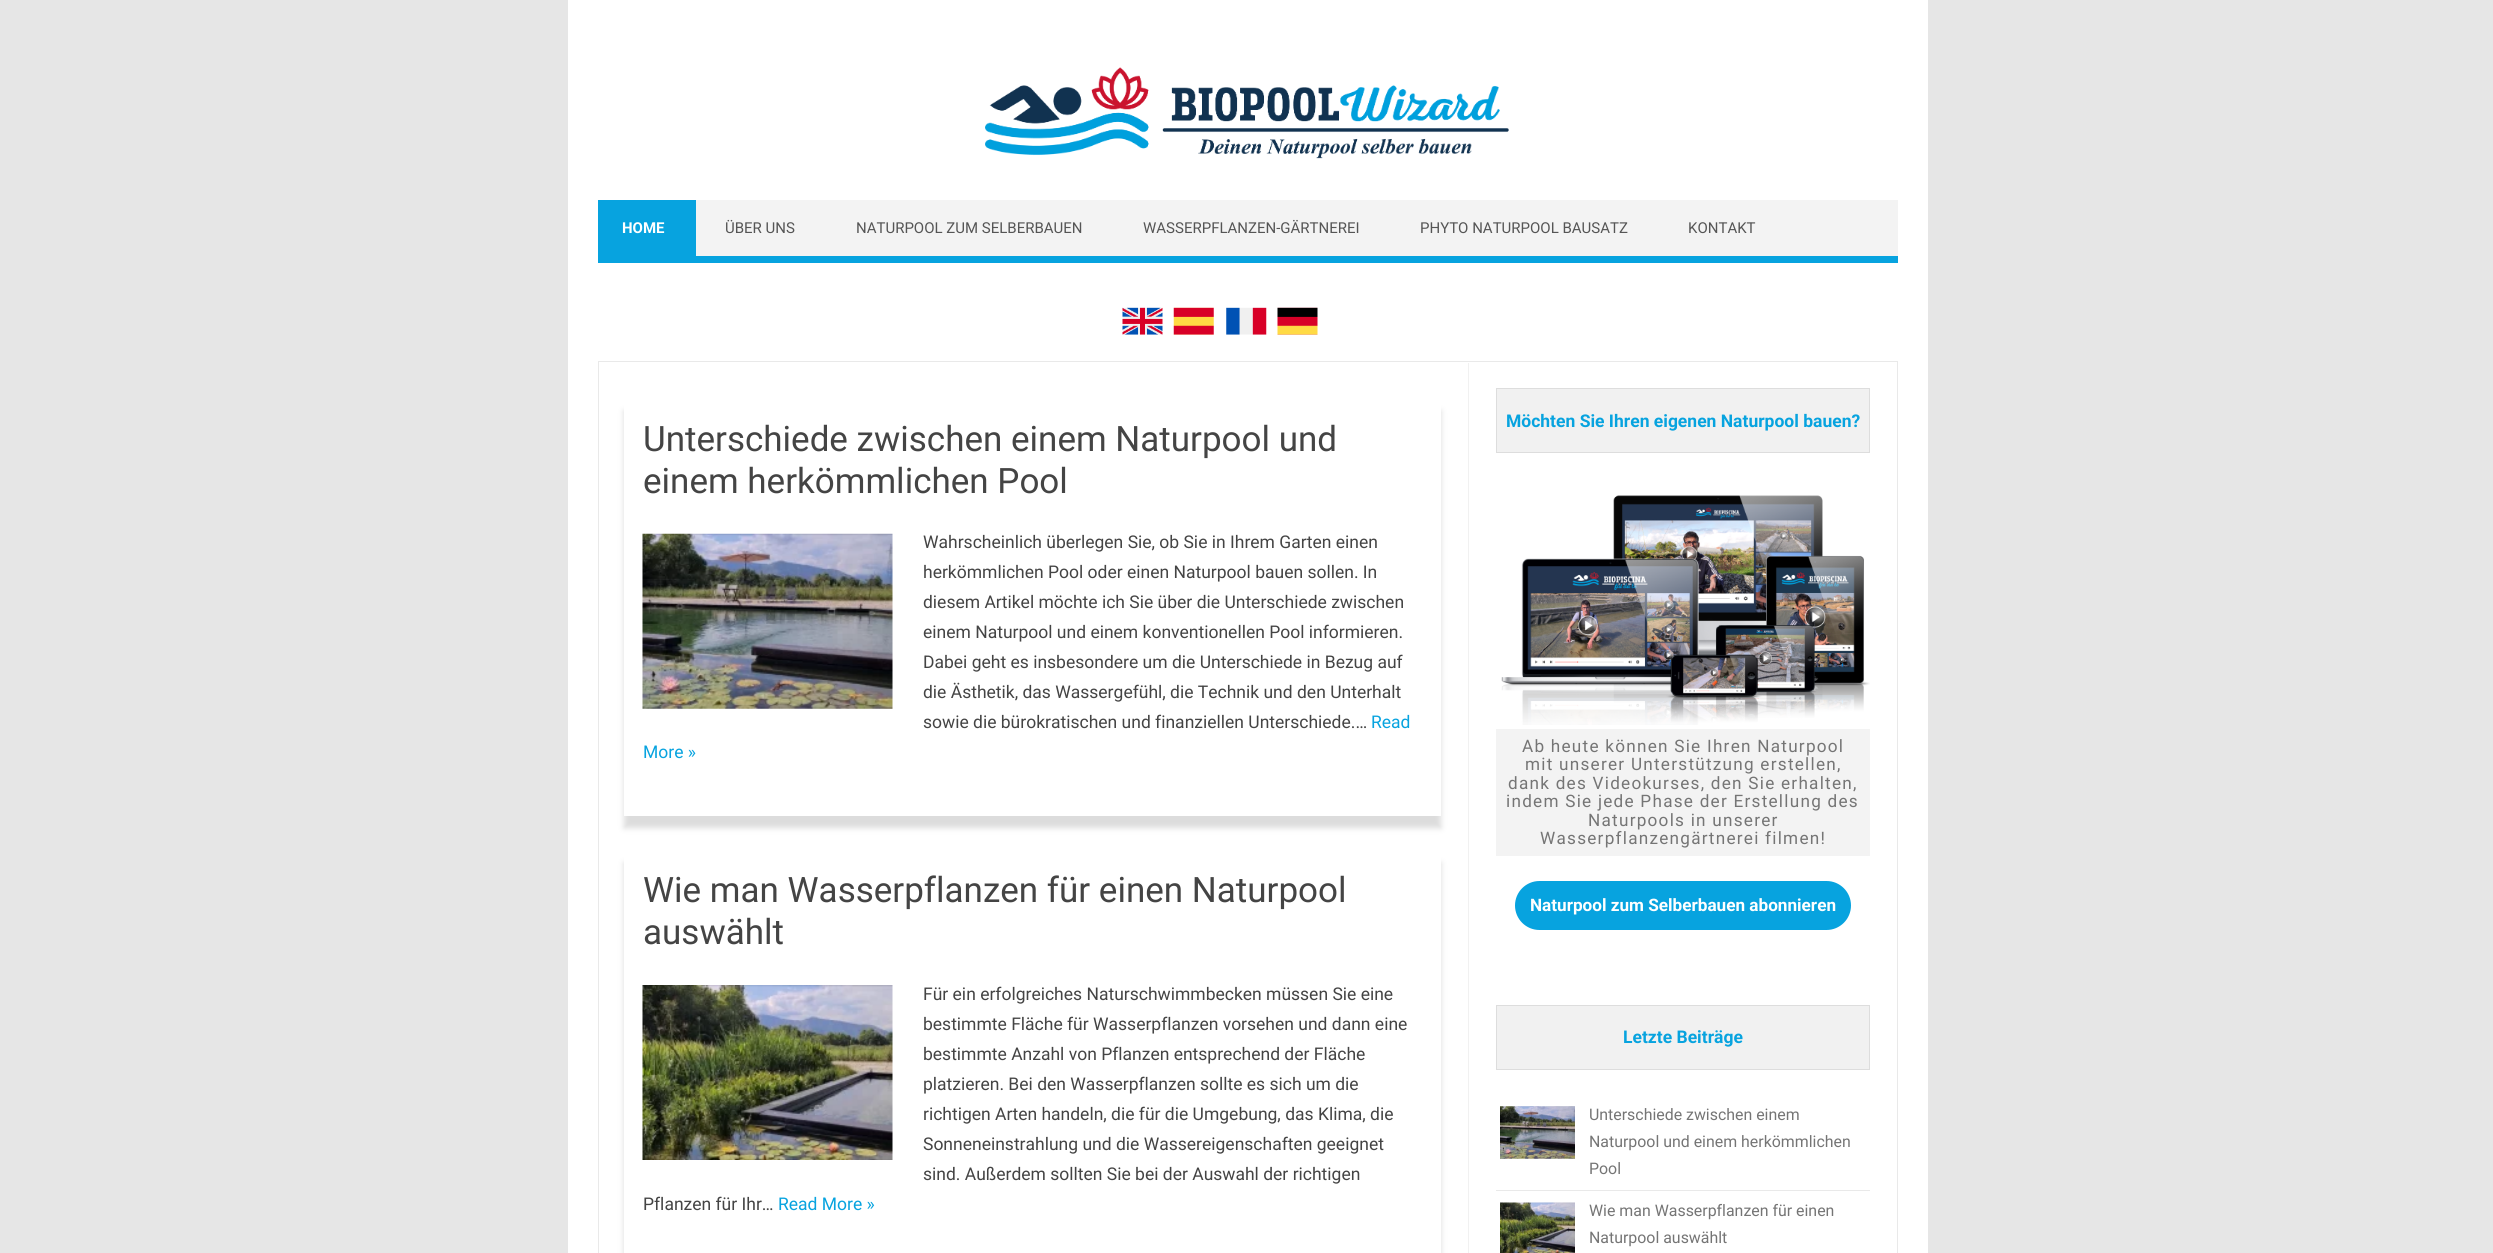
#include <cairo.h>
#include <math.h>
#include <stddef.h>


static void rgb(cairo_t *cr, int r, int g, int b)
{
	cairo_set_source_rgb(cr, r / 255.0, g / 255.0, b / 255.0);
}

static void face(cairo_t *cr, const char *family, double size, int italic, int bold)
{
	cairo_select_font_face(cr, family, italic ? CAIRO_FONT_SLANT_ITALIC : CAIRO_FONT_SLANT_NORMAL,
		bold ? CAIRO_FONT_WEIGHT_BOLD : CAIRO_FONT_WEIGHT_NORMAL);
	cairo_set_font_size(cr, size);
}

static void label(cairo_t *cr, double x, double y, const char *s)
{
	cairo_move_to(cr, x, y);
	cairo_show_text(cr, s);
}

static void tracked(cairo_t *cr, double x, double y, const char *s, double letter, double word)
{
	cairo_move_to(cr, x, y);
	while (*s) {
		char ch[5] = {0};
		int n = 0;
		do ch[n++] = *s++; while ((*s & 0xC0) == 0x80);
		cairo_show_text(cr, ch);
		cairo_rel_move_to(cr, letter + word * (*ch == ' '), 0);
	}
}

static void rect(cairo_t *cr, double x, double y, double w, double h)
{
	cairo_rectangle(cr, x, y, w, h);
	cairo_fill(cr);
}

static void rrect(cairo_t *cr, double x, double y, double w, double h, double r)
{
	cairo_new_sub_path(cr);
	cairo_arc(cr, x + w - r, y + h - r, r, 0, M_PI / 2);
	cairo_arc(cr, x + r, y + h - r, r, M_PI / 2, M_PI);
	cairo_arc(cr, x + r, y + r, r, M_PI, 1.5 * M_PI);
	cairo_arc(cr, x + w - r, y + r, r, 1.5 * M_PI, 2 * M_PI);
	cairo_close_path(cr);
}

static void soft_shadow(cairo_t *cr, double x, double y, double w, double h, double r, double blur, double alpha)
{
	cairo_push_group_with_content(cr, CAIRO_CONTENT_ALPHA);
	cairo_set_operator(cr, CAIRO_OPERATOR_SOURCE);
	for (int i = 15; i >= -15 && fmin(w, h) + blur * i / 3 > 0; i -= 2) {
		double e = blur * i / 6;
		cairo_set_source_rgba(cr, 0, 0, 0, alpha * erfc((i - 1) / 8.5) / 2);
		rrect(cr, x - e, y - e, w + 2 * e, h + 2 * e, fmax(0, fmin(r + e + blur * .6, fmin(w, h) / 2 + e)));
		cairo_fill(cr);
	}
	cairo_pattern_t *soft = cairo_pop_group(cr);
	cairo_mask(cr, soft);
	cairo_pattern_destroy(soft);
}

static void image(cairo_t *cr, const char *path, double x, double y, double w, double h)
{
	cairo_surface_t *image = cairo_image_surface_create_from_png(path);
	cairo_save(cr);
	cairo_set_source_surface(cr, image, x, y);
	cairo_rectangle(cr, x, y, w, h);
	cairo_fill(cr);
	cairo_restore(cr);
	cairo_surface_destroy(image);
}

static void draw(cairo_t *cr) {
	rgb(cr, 230, 230, 230);
	cairo_paint(cr);
	rgb(cr, 255, 255, 255);
	rect(cr, 568, 0, 1360, 1253);
	image(cr, "image0.png", 985, 67, 524, 92);
	rgb(cr, 243, 243, 243);
	rect(cr, 696, 200, 1202, 56);
	rgb(cr, 7, 163, 223);
	rect(cr, 598, 256, 1300, 7);
	rect(cr, 598, 200, 98, 56);
	face(cr, "Roboto", 15, 0, 1);
	rgb(cr, 255, 255, 255);
	label(cr, 622, 233, "HOME");
	face(cr, "Roboto", 15, 0, 0);
	rgb(cr, 85, 85, 85);
	label(cr, 725, 233, "ÜBER UNS");
	label(cr, 856, 233, "NATURPOOL ZUM SELBERBAUEN");
	label(cr, 1143, 233, "WASSERPFLANZEN-GÄRTNEREI");
	label(cr, 1420, 233, "PHYTO NATURPOOL BAUSATZ");
	label(cr, 1688, 233, "KONTAKT");
	image(cr, "image1.png", 1122, 307, 41, 28);
	image(cr, "image2.png", 1173, 307, 41, 28);
	image(cr, "image3.png", 1226, 307, 41, 28);
	image(cr, "image4.png", 1277, 307, 41, 28);
	cairo_rectangle(cr, 598.5, 361.5, 1299, 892);
	rgb(cr, 233, 233, 233);
	cairo_set_line_width(cr, 1);
	cairo_stroke(cr);
	rgb(cr, 241, 241, 241);
	rect(cr, 1468, 363, 1, 890);
	cairo_save(cr);
	cairo_set_fill_rule(cr, CAIRO_FILL_RULE_EVEN_ODD);
	cairo_new_path(cr);
	cairo_move_to(cr, 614, 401);
	cairo_line_to(cr, 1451, 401);
	cairo_line_to(cr, 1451, 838);
	cairo_line_to(cr, 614, 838);
	cairo_close_path(cr);
	cairo_move_to(cr, 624, 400);
	cairo_line_to(cr, 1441, 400);
	cairo_line_to(cr, 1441, 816);
	cairo_line_to(cr, 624, 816);
	cairo_close_path(cr);
	cairo_clip(cr);
	rgb(cr, 220, 220, 220);
	soft_shadow(cr, 624, 411, 817, 417, 0, 3, 1);
	cairo_restore(cr);
	face(cr, "Roboto", 35, 0, 0);
	rgb(cr, 68, 68, 68);
	label(cr, 643, 451, "Unterschiede zwischen einem Naturpool und");
	label(cr, 643, 493, "einem herkömmlichen Pool");
	image(cr, "image5.png", 642, 533, 251, 176);
	face(cr, "Roboto", 17.5, 0, 0);
	label(cr, 923, 548, "Wahrscheinlich überlegen Sie, ob Sie in Ihrem Garten einen");
	label(cr, 923, 578, "herkömmlichen Pool oder einen Naturpool bauen sollen. In");
	label(cr, 923, 608, "diesem Artikel möchte ich Sie über die Unterschiede zwischen");
	label(cr, 923, 638, "einem Naturpool und einem konventionellen Pool informieren.");
	label(cr, 923, 668, "Dabei geht es insbesondere um die Unterschiede in Bezug auf");
	label(cr, 923, 698, "die Ästhetik, das Wassergefühl, die Technik und den Unterhalt");
	label(cr, 923, 728, "sowie die bürokratischen und finanziellen Unterschiede.…");
	rgb(cr, 7, 163, 223);
	label(cr, 1371, 728, "Read");
	label(cr, 643, 758, "More »");
	cairo_save(cr);
	cairo_set_fill_rule(cr, CAIRO_FILL_RULE_EVEN_ODD);
	cairo_new_path(cr);
	cairo_move_to(cr, 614, 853);
	cairo_line_to(cr, 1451, 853);
	cairo_line_to(cr, 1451, 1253);
	cairo_line_to(cr, 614, 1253);
	cairo_close_path(cr);
	cairo_move_to(cr, 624, 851);
	cairo_line_to(cr, 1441, 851);
	cairo_line_to(cr, 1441, 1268);
	cairo_line_to(cr, 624, 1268);
	cairo_close_path(cr);
	cairo_clip(cr);
	rgb(cr, 220, 220, 220);
	soft_shadow(cr, 624, 863, 817, 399, 0, 3, 1);
	cairo_restore(cr);
	face(cr, "Roboto", 35, 0, 0);
	rgb(cr, 68, 68, 68);
	label(cr, 643, 902, "Wie man Wasserpflanzen für einen Naturpool");
	label(cr, 643, 944, "auswählt");
	image(cr, "image6.png", 642, 985, 251, 175);
	face(cr, "Roboto", 17.5, 0, 0);
	label(cr, 923, 1000, "Für ein erfolgreiches Naturschwimmbecken müssen Sie eine");
	label(cr, 923, 1030, "bestimmte Fläche für Wasserpflanzen vorsehen und dann eine");
	label(cr, 923, 1060, "bestimmte Anzahl von Pflanzen entsprechend der Fläche");
	label(cr, 923, 1090, "platzieren. Bei den Wasserpflanzen sollte es sich um die");
	label(cr, 923, 1120, "richtigen Arten handeln, die für die Umgebung, das Klima, die");
	label(cr, 923, 1150, "Sonneneinstrahlung und die Wassereigenschaften geeignet");
	label(cr, 923, 1180, "sind. Außerdem sollten Sie bei der Auswahl der richtigen");
	label(cr, 643, 1210, "Pflanzen für Ihr…");
	rgb(cr, 7, 163, 223);
	label(cr, 778, 1210, "Read More »");
	rgb(cr, 241, 241, 241);
	cairo_rectangle(cr, 1496.5, 388.5, 373, 64);
	cairo_fill_preserve(cr);
	rgb(cr, 221, 221, 221);
	cairo_stroke(cr);
	face(cr, "Roboto", 17.5, 0, 1);
	rgb(cr, 7, 163, 223);
	label(cr, 1506, 427, "Möchten Sie Ihren eigenen Naturpool bauen?");
	image(cr, "image7.png", 1501, 495, 369, 230);
	rgb(cr, 243, 243, 243);
	rect(cr, 1496, 729, 374, 127);
	face(cr, "Roboto", 17.15, 0, 0);
	rgb(cr, 117, 117, 117);
	tracked(cr, 1522, 752, "Ab heute können Sie Ihren Naturpool", 1.25, 0);
	tracked(cr, 1525, 770, "mit unserer Unterstützung erstellen,", 1.25, 0);
	tracked(cr, 1508, 789, "dank des Videokurses, den Sie erhalten,", 1.25, 0);
	tracked(cr, 1506, 807, "indem Sie jede Phase der Erstellung des", 1.25, 0);
	tracked(cr, 1588, 826, "Naturpools in unserer", 1.25, 0);
	tracked(cr, 1540, 844, "Wasserpflanzengärtnerei filmen!", 1.25, 0);
	rgb(cr, 7, 163, 223);
	rrect(cr, 1516.5, 882.5, 333, 46, 23);
	cairo_fill_preserve(cr);
	cairo_set_line_width(cr, 3);
	cairo_stroke(cr);
	face(cr, "Roboto", 17.15, 0, 1);
	rgb(cr, 255, 255, 255);
	label(cr, 1530, 911, "Naturpool zum Selberbauen abonnieren");
	rgb(cr, 241, 241, 241);
	cairo_rectangle(cr, 1496.5, 1005.5, 373, 64);
	cairo_fill_preserve(cr);
	rgb(cr, 221, 221, 221);
	cairo_set_line_width(cr, 1);
	cairo_stroke(cr);
	face(cr, "Roboto", 17.5, 0, 1);
	rgb(cr, 7, 163, 223);
	label(cr, 1623, 1043, "Letzte Beiträge");
	rgb(cr, 233, 233, 233);
	rect(cr, 1496, 1190, 374, 1);
	image(cr, "image8.png", 1500, 1106, 75, 53);
	face(cr, "Roboto", 15.9, 0, 0);
	rgb(cr, 117, 117, 117);
	label(cr, 1589, 1120, "Unterschiede zwischen einem");
	label(cr, 1589, 1147, "Naturpool und einem herkömmlichen");
	label(cr, 1589, 1174, "Pool");
	image(cr, "image9.png", 1500, 1202, 75, 51);
	label(cr, 1589, 1216, "Wie man Wasserpflanzen für einen");
	label(cr, 1589, 1243, "Naturpool auswählt");
}

int main(void) {
	cairo_surface_t *surface = cairo_image_surface_create(CAIRO_FORMAT_RGB24, 2493, 1253);
	cairo_t *cr = cairo_create(surface);
	cairo_font_options_t *options = cairo_font_options_create();
	cairo_font_options_set_hint_metrics(options, CAIRO_HINT_METRICS_OFF);
	cairo_font_options_set_hint_style(options, CAIRO_HINT_STYLE_NONE);
	cairo_set_font_options(cr, options);
	cairo_set_miter_limit(cr, 4);
	draw(cr);
	cairo_surface_write_to_png(surface, "render.png");
	cairo_font_options_destroy(options);
	cairo_destroy(cr);
	cairo_surface_destroy(surface);
	return 0;
}
